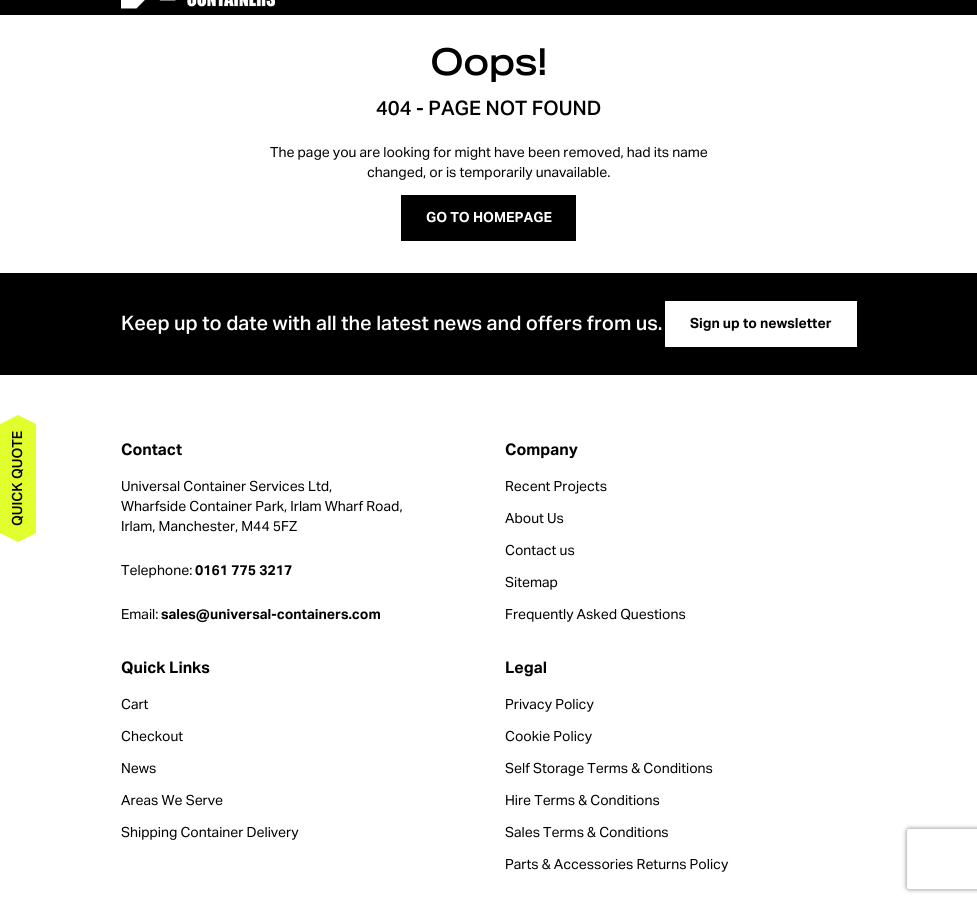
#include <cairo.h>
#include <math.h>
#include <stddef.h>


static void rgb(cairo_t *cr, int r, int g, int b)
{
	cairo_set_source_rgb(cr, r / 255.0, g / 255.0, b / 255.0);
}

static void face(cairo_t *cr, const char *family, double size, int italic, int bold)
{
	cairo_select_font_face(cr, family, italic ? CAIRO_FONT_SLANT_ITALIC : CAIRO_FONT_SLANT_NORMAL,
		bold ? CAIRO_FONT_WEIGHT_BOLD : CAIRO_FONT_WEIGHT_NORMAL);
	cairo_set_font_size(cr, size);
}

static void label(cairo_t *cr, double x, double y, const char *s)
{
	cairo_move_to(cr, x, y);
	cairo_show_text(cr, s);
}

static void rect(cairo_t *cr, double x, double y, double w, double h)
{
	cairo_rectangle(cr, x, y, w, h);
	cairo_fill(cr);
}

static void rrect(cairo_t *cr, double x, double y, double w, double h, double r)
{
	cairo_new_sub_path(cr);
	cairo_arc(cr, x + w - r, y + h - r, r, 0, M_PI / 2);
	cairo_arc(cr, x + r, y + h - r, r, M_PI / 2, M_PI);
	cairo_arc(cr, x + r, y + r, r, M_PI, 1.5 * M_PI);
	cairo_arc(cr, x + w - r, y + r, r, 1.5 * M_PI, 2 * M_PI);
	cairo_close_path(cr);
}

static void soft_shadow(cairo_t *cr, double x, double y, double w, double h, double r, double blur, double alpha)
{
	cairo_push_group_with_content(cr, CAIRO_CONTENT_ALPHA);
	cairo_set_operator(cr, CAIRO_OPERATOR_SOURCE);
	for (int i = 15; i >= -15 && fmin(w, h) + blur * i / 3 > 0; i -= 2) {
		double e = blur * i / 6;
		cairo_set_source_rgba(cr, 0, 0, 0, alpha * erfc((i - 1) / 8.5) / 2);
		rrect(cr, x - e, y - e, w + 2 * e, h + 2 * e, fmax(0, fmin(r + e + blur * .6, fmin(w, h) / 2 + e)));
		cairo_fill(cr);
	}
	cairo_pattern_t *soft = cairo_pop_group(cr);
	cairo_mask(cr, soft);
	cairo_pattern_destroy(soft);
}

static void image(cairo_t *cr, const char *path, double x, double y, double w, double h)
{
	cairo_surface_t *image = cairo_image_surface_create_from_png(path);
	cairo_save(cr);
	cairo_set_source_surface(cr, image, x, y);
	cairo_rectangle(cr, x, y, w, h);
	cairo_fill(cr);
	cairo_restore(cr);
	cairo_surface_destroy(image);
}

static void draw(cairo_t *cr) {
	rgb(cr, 255, 255, 255);
	cairo_paint(cr);
	rgb(cr, 225, 255, 44);
	cairo_new_path(cr);
	cairo_move_to(cr, 0, 533);
	cairo_line_to(cr, 18, 542);
	cairo_line_to(cr, 36, 533);
	cairo_line_to(cr, 36, 424);
	cairo_line_to(cr, 18, 415);
	cairo_line_to(cr, 0, 424);
	cairo_close_path(cr);
	cairo_fill(cr);
	face(cr, "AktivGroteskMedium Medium", 14, 0, 0);
	rgb(cr, 0, 0, 0);
	cairo_save(cr);
	cairo_translate(cr, 22, 479);
	cairo_rotate(cr, -90 * M_PI / 180);
	label(cr, 0, 0, "QUOTE");
	cairo_restore(cr);
	cairo_save(cr);
	cairo_translate(cr, 22, 526);
	cairo_rotate(cr, -90 * M_PI / 180);
	label(cr, 0, 0, "QUICK");
	cairo_restore(cr);
	rect(cr, 0, 0, 977, 15);
	image(cr, "image0.png", 121, 0, 154, 9);
	face(cr, "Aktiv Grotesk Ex", 36, 0, 1);
	label(cr, 430, 75, "Oops!");
	face(cr, "AktivGroteskMedium Medium", 20, 0, 0);
	label(cr, 376, 115, "404 - PAGE NOT FOUND");
	face(cr, "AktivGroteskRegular", 14, 0, 0);
	label(cr, 270, 157, "The page you are looking for might have been removed, had its name");
	label(cr, 367, 177, "changed, or is temporarily unavailable.");
	rect(cr, 401, 195, 175, 46);
	face(cr, "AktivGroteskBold", 14, 0, 1);
	rgb(cr, 255, 255, 255);
	label(cr, 426, 222, "GO TO HOMEPAGE");
	rgb(cr, 0, 0, 0);
	rect(cr, 0, 273, 977, 102);
	face(cr, "AktivGroteskMedium Medium", 20, 0, 0);
	rgb(cr, 255, 255, 255);
	label(cr, 121, 330, "Keep up to date with all the latest news and offers from us.");
	rect(cr, 665, 301, 192, 46);
	face(cr, "AktivGroteskBold", 14, 0, 1);
	rgb(cr, 0, 0, 0);
	label(cr, 690, 328, "Sign up to newsletter");
	face(cr, "AktivGroteskBold", 16, 0, 1);
	label(cr, 121, 455, "Contact");
	face(cr, "AktivGroteskRegular", 14, 0, 0);
	label(cr, 121, 491, "Universal Container Services Ltd,");
	label(cr, 121, 511, "Wharfside Container Park, Irlam Wharf Road,");
	label(cr, 121, 531, "Irlam, Manchester, M44 5FZ");
	label(cr, 121, 575, "Telephone:");
	face(cr, "AktivGroteskBold", 14, 0, 1);
	label(cr, 195, 575, "0161 775 3217");
	face(cr, "AktivGroteskRegular", 14, 0, 0);
	label(cr, 121, 619, "Email:");
	face(cr, "AktivGroteskBold", 14, 0, 1);
	label(cr, 161, 619, "sales@universal-containers.com");
	face(cr, "AktivGroteskBold", 16, 0, 1);
	label(cr, 505, 455, "Company");
	face(cr, "AktivGroteskRegular", 14, 0, 0);
	label(cr, 505, 491, "Recent Projects");
	label(cr, 505, 523, "About Us");
	label(cr, 505, 555, "Contact us");
	label(cr, 505, 587, "Sitemap");
	label(cr, 505, 619, "Frequently Asked Questions");
	face(cr, "AktivGroteskBold", 16, 0, 1);
	label(cr, 121, 673, "Quick Links");
	face(cr, "AktivGroteskRegular", 14, 0, 0);
	label(cr, 121, 709, "Cart");
	label(cr, 121, 741, "Checkout");
	label(cr, 121, 773, "News");
	label(cr, 121, 805, "Areas We Serve");
	label(cr, 121, 837, "Shipping Container Delivery");
	face(cr, "AktivGroteskBold", 16, 0, 1);
	label(cr, 505, 673, "Legal");
	face(cr, "AktivGroteskRegular", 14, 0, 0);
	label(cr, 505, 709, "Privacy Policy");
	label(cr, 505, 741, "Cookie Policy");
	label(cr, 505, 773, "Self Storage Terms & Conditions");
	label(cr, 505, 805, "Hire Terms & Conditions");
	label(cr, 505, 837, "Sales Terms & Conditions");
	label(cr, 505, 869, "Parts & Accessories Returns Policy");
	cairo_save(cr);
	cairo_set_fill_rule(cr, CAIRO_FILL_RULE_EVEN_ODD);
	cairo_new_path(cr);
	cairo_move_to(cr, 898, 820);
	cairo_line_to(cr, 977, 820);
	cairo_line_to(cr, 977, 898);
	cairo_line_to(cr, 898, 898);
	cairo_close_path(cr);
	cairo_move_to(cr, 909, 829);
	cairo_line_to(cr, 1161, 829);
	cairo_curve_to(cr, 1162, 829, 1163, 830, 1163, 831);
	cairo_line_to(cr, 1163, 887);
	cairo_curve_to(cr, 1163, 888, 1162, 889, 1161, 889);
	cairo_line_to(cr, 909, 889);
	cairo_curve_to(cr, 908, 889, 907, 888, 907, 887);
	cairo_line_to(cr, 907, 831);
	cairo_curve_to(cr, 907, 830, 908, 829, 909, 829);
	cairo_close_path(cr);
	cairo_clip(cr);
	rgb(cr, 128, 128, 128);
	soft_shadow(cr, 907, 829, 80, 60, 2, 2.5, 1);
	cairo_restore(cr);
}

int main(void) {
	cairo_surface_t *surface = cairo_image_surface_create(CAIRO_FORMAT_RGB24, 977, 903);
	cairo_t *cr = cairo_create(surface);
	cairo_font_options_t *options = cairo_font_options_create();
	cairo_font_options_set_hint_metrics(options, CAIRO_HINT_METRICS_OFF);
	cairo_font_options_set_hint_style(options, CAIRO_HINT_STYLE_NONE);
	cairo_set_font_options(cr, options);
	cairo_set_miter_limit(cr, 4);
	draw(cr);
	cairo_surface_write_to_png(surface, "render.png");
	cairo_font_options_destroy(options);
	cairo_destroy(cr);
	cairo_surface_destroy(surface);
	return 0;
}
